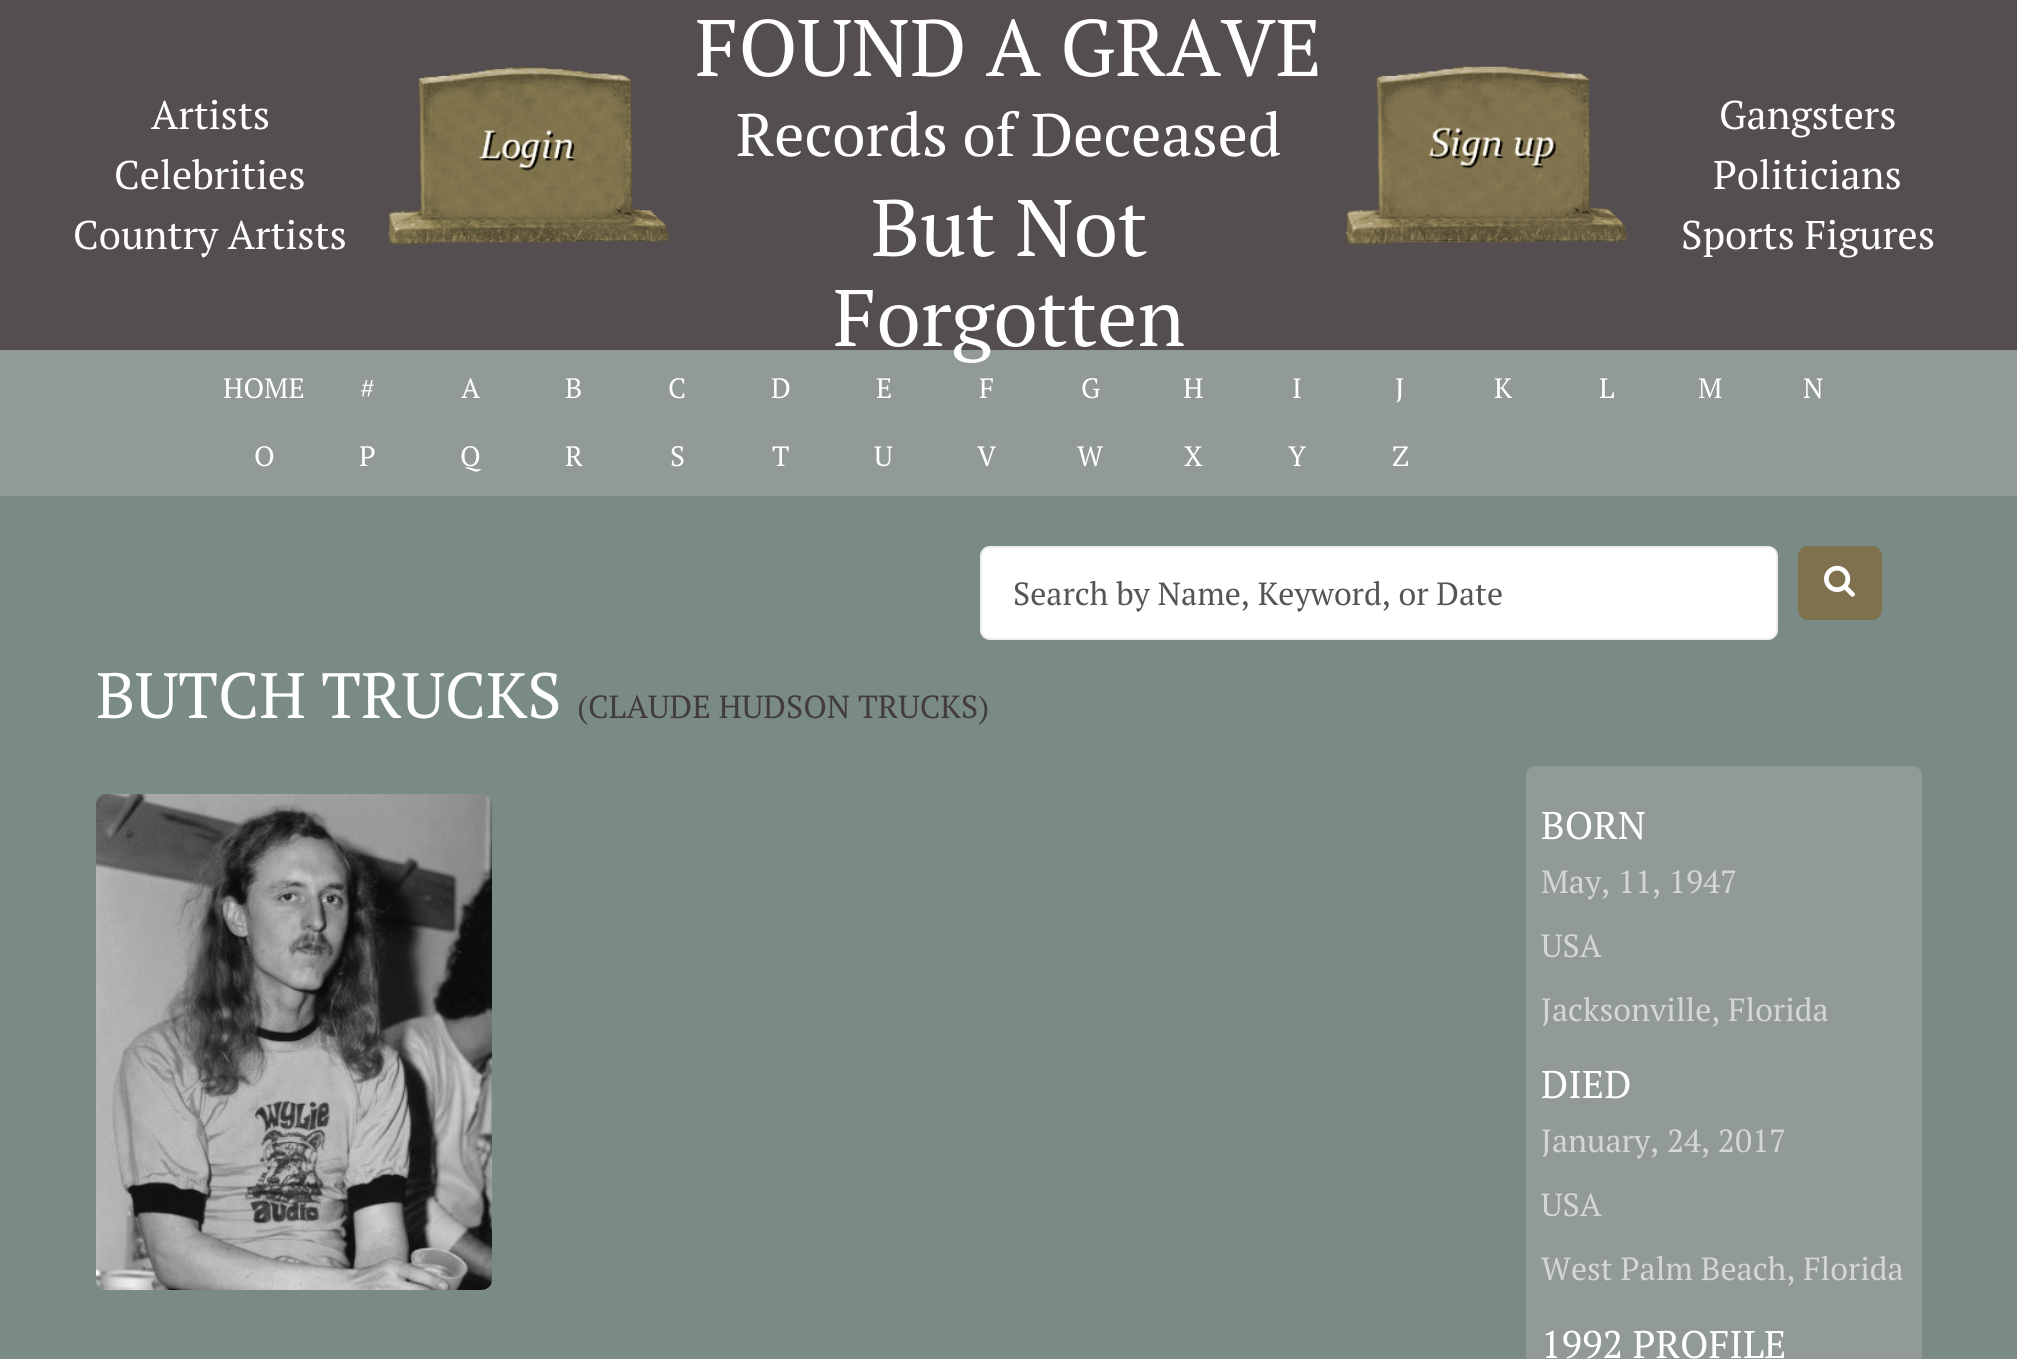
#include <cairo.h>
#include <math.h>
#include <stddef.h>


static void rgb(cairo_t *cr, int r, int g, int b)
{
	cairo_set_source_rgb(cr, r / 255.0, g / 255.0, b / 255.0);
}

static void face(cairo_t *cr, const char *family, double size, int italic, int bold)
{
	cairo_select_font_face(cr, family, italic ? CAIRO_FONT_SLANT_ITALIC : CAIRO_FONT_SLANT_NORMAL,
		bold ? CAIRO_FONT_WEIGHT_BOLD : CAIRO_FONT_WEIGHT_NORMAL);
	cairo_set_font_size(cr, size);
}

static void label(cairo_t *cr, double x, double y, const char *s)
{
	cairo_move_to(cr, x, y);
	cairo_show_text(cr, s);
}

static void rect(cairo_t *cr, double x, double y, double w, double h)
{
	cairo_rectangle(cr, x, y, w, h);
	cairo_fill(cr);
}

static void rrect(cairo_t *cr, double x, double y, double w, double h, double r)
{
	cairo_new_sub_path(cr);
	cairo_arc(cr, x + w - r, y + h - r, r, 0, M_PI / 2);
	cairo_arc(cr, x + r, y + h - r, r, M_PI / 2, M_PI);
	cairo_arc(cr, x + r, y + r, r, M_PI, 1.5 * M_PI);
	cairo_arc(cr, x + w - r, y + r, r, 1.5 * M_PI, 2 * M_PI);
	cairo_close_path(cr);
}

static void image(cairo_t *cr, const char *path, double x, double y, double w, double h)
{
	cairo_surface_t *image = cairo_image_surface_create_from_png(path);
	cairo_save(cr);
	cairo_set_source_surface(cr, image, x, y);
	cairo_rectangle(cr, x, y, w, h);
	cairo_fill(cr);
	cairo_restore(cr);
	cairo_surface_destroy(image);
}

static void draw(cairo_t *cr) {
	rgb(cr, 84, 78, 80);
	cairo_paint(cr);
	face(cr, "PT Serif", 40, 0, 0);
	rgb(cr, 255, 255, 255);
	label(cr, 151, 129, "Artists");
	label(cr, 114, 189, "Celebrities");
	label(cr, 73, 249, "Country Artists");
	image(cr, "image0.png", 388, 67, 282, 178);
	face(cr, "PT Serif", 80, 0, 0);
	label(cr, 695, 76, "FOUND A GRAVE");
	face(cr, "PT Serif", 60, 0, 0);
	label(cr, 736, 156, "Records of Deceased");
	face(cr, "PT Serif", 80, 0, 0);
	label(cr, 871, 256, "But Not");
	rgb(cr, 145, 154, 151);
	rect(cr, 0, 350, 2017, 146);
	rgb(cr, 255, 255, 255);
	label(cr, 833, 346, "Forgotten");
	image(cr, "image1.png", 1346, 66, 282, 179);
	face(cr, "PT Serif", 40, 0, 0);
	label(cr, 1719, 129, "Gangsters");
	label(cr, 1713, 189, "Politicians");
	label(cr, 1681, 249, "Sports Figures");
	face(cr, "PT Serif", 28, 0, 0);
	label(cr, 223, 398, "HOME");
	label(cr, 360, 398, "#");
	label(cr, 461, 398, "A");
	label(cr, 565, 398, "B");
	label(cr, 668, 398, "C");
	label(cr, 771, 398, "D");
	label(cr, 876, 398, "E");
	label(cr, 979, 398, "F");
	label(cr, 1081, 398, "G");
	label(cr, 1183, 398, "H");
	label(cr, 1292, 398, "I");
	label(cr, 1395, 398, "J");
	label(cr, 1494, 398, "K");
	label(cr, 1599, 398, "L");
	label(cr, 1698, 398, "M");
	label(cr, 1803, 398, "N");
	label(cr, 254, 466, "O");
	label(cr, 359, 466, "P");
	label(cr, 460, 466, "Q");
	label(cr, 565, 466, "R");
	label(cr, 670, 466, "S");
	label(cr, 772, 466, "T");
	label(cr, 874, 466, "U");
	label(cr, 977, 466, "V");
	label(cr, 1077, 466, "W");
	label(cr, 1184, 466, "X");
	label(cr, 1288, 466, "Y");
	label(cr, 1392, 466, "Z");
	rgb(cr, 122, 139, 135);
	rect(cr, 0, 496, 2017, 863);
	rgb(cr, 255, 255, 255);
	rrect(cr, 981, 547, 796, 92, 9);
	cairo_fill_preserve(cr);
	rgb(cr, 238, 238, 238);
	cairo_stroke(cr);
	face(cr, "PT Serif", 32, 0, 0);
	rgb(cr, 85, 85, 85);
	label(cr, 1013, 605, "Search by Name, Keyword, or Date");
	rgb(cr, 127, 113, 77);
	rrect(cr, 1798, 546, 84, 74, 10);
	cairo_fill(cr);
	image(cr, "image2.png", 1824, 565, 31, 32);
	face(cr, "PT Serif", 64, 0, 0);
	rgb(cr, 255, 255, 255);
	label(cr, 96, 718, "BUTCH TRUCKS");
	face(cr, "PT Serif", 32, 0, 0);
	rgb(cr, 66, 60, 61);
	label(cr, 577, 718, "(CLAUDE HUDSON TRUCKS)");
	image(cr, "image3.png", 96, 794, 396, 496);
	rgb(cr, 145, 154, 151);
	rrect(cr, 1526, 766, 396, 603, 10);
	cairo_fill(cr);
	face(cr, "PT Serif", 38.5, 0, 0);
	rgb(cr, 255, 255, 255);
	label(cr, 1541, 839, "BORN");
	face(cr, "PT Serif", 32, 0, 0);
	rgb(cr, 211, 215, 213);
	label(cr, 1541, 893, "May, 11, 1947");
	label(cr, 1541, 957, "USA");
	label(cr, 1541, 1021, "Jacksonville, Florida");
	face(cr, "PT Serif", 38.5, 0, 0);
	rgb(cr, 255, 255, 255);
	label(cr, 1541, 1098, "DIED");
	face(cr, "PT Serif", 32, 0, 0);
	rgb(cr, 211, 215, 213);
	label(cr, 1541, 1152, "January, 24, 2017");
	label(cr, 1541, 1216, "USA");
	label(cr, 1541, 1280, "West Palm Beach, Florida");
	face(cr, "PT Serif", 38.5, 0, 0);
	rgb(cr, 255, 255, 255);
	label(cr, 1541, 1358, "1992 PROFILE");
}

int main(void) {
	cairo_surface_t *surface = cairo_image_surface_create(CAIRO_FORMAT_RGB24, 2017, 1359);
	cairo_t *cr = cairo_create(surface);
	cairo_font_options_t *options = cairo_font_options_create();
	cairo_font_options_set_hint_metrics(options, CAIRO_HINT_METRICS_OFF);
	cairo_font_options_set_hint_style(options, CAIRO_HINT_STYLE_NONE);
	cairo_set_font_options(cr, options);
	cairo_set_miter_limit(cr, 4);
	draw(cr);
	cairo_surface_write_to_png(surface, "render.png");
	cairo_font_options_destroy(options);
	cairo_destroy(cr);
	cairo_surface_destroy(surface);
	return 0;
}
